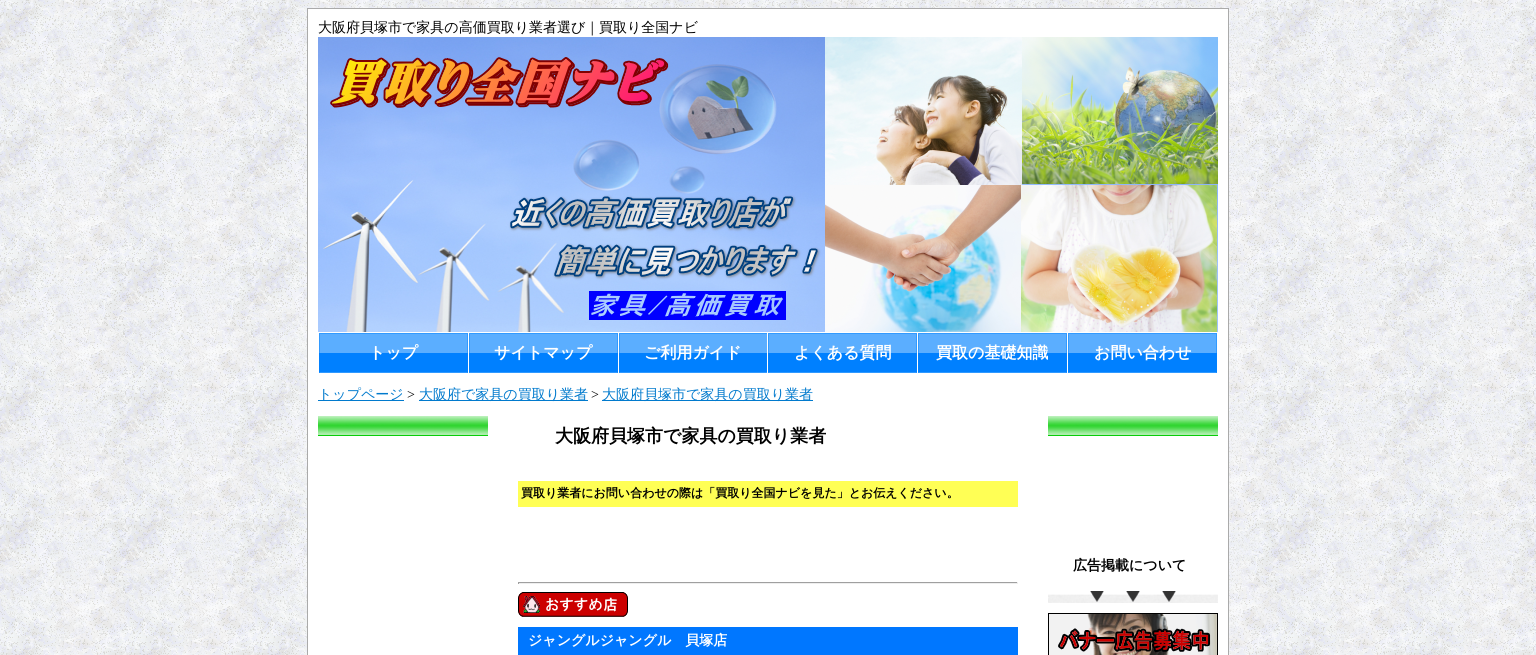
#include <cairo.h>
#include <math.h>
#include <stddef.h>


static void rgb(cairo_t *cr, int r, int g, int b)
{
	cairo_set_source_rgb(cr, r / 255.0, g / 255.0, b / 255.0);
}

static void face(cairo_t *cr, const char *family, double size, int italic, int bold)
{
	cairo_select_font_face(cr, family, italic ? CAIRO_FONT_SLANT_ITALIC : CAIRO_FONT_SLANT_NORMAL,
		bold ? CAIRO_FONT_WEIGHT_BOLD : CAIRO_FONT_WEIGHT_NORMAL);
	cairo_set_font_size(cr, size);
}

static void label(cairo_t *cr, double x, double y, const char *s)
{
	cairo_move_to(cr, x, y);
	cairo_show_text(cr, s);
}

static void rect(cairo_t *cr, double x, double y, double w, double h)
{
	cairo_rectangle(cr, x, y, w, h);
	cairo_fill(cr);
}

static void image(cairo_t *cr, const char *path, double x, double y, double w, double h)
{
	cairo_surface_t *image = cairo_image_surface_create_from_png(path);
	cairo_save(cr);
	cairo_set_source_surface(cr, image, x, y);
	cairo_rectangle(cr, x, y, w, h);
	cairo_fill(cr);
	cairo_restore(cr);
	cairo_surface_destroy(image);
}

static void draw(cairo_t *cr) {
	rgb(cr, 255, 255, 255);
	cairo_paint(cr);
	image(cr, "image0.png", 0, 0, 1536, 655);
	cairo_rectangle(cr, 307.5, 8.5, 921, 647);
	rgb(cr, 170, 170, 170);
	cairo_set_line_width(cr, 1);
	cairo_stroke(cr);
	rgb(cr, 255, 255, 255);
	rect(cr, 308, 9, 920, 646);
	face(cr, "WenQuanYi Zen Hei Medium", 14, 0, 0);
	rgb(cr, 0, 0, 0);
	label(cr, 318, 32, "大阪府貝塚市で家具の高価買取り業者選び｜買取り全国ナビ");
	image(cr, "image1.png", 318, 37, 900, 295);
	image(cr, "image2.png", 319, 333, 149, 40);
	face(cr, "WenQuanYi Zen Hei", 16, 0, 1);
	rgb(cr, 255, 255, 255);
	label(cr, 369, 358, "トップ");
	image(cr, "image2.png", 469, 333, 149, 40);
	label(cr, 494, 358, "サイトマップ");
	image(cr, "image3.png", 619, 333, 148, 40);
	label(cr, 644, 358, "ご利用ガイド");
	image(cr, "image2.png", 768, 333, 149, 40);
	label(cr, 794, 358, "よくある質問");
	image(cr, "image2.png", 918, 333, 149, 40);
	label(cr, 936, 358, "買取の基礎知識");
	image(cr, "image2.png", 1068, 333, 149, 40);
	label(cr, 1094, 358, "お問い合わせ");
	rgb(cr, 1, 122, 205);
	rect(cr, 318, 400, 86, 1);
	face(cr, "WenQuanYi Zen Hei Medium", 14, 0, 0);
	label(cr, 318, 399, "トップページ");
	face(cr, "Liberation Serif", 14, 0, 0);
	rgb(cr, 0, 0, 0);
	label(cr, 407, 399, ">");
	rgb(cr, 1, 122, 205);
	rect(cr, 419, 400, 169, 1);
	face(cr, "WenQuanYi Zen Hei Medium", 14, 0, 0);
	label(cr, 419, 399, "大阪府で家具の買取り業者");
	face(cr, "Liberation Serif", 14, 0, 0);
	rgb(cr, 0, 0, 0);
	label(cr, 591, 399, ">");
	rgb(cr, 1, 122, 205);
	rect(cr, 602, 400, 211, 1);
	face(cr, "WenQuanYi Zen Hei Medium", 14, 0, 0);
	label(cr, 602, 399, "大阪府貝塚市で家具の買取り業者");
	image(cr, "image4.png", 318, 416, 170, 20);
	face(cr, "WenQuanYi Zen Hei", 18, 0, 1);
	rgb(cr, 0, 0, 0);
	label(cr, 555, 442, "大阪府貝塚市で家具の買取り業者");
	rgb(cr, 255, 255, 85);
	rect(cr, 518, 481, 500, 26);
	face(cr, "WenQuanYi Zen Hei", 12, 0, 1);
	rgb(cr, 0, 0, 0);
	label(cr, 521, 497, "買取り業者にお問い合わせの際は「買取り全国ナビを見た」とお伝えください。");
	rgb(cr, 159, 159, 159);
	rect(cr, 518, 582, 500, 1);
	rgb(cr, 238, 238, 238);
	rect(cr, 1017, 582, 1, 2);
	rect(cr, 518, 583, 500, 1);
	rgb(cr, 159, 159, 159);
	rect(cr, 518, 582, 1, 2);
	image(cr, "image5.png", 518, 592, 110, 25);
	rgb(cr, 0, 119, 255);
	rect(cr, 518, 627, 500, 28);
	face(cr, "WenQuanYi Zen Hei", 14, 0, 1);
	rgb(cr, 255, 255, 255);
	label(cr, 528, 645, "ジャングルジャングル　貝塚店");
	image(cr, "image4.png", 1048, 416, 170, 20);
	rgb(cr, 0, 0, 0);
	label(cr, 1073, 570, "広告掲載について");
	image(cr, "image6.png", 1048, 591, 170, 12);
	image(cr, "image7.png", 1048, 613, 170, 42);
}

int main(void) {
	cairo_surface_t *surface = cairo_image_surface_create(CAIRO_FORMAT_RGB24, 1536, 655);
	cairo_t *cr = cairo_create(surface);
	cairo_font_options_t *options = cairo_font_options_create();
	cairo_font_options_set_hint_metrics(options, CAIRO_HINT_METRICS_OFF);
	cairo_font_options_set_hint_style(options, CAIRO_HINT_STYLE_NONE);
	cairo_set_font_options(cr, options);
	cairo_set_miter_limit(cr, 4);
	draw(cr);
	cairo_surface_write_to_png(surface, "render.png");
	cairo_font_options_destroy(options);
	cairo_destroy(cr);
	cairo_surface_destroy(surface);
	return 0;
}
